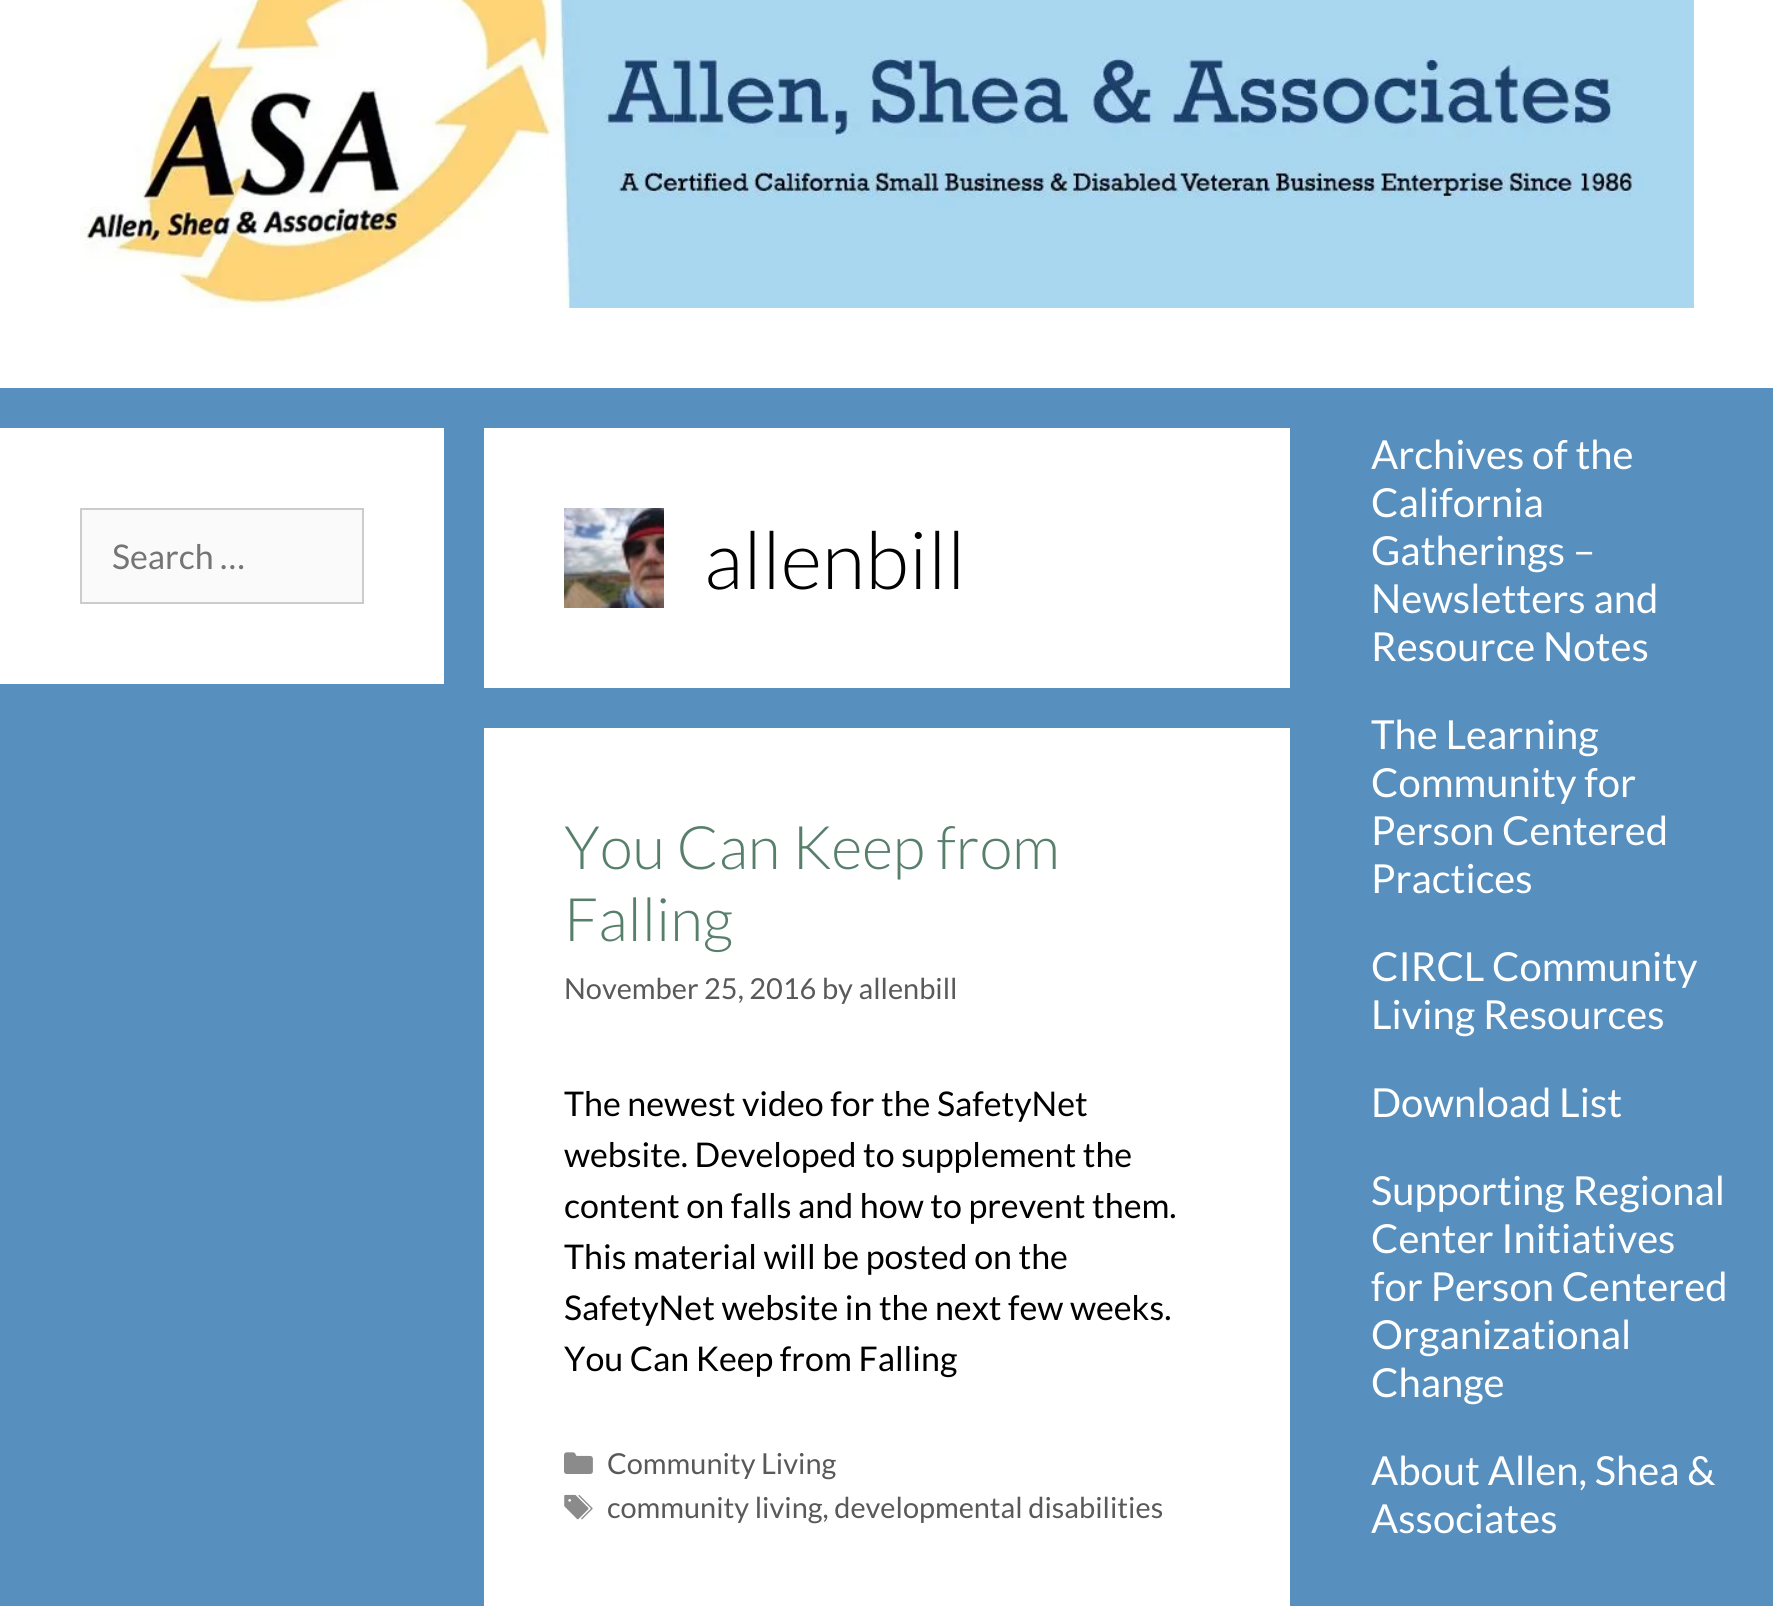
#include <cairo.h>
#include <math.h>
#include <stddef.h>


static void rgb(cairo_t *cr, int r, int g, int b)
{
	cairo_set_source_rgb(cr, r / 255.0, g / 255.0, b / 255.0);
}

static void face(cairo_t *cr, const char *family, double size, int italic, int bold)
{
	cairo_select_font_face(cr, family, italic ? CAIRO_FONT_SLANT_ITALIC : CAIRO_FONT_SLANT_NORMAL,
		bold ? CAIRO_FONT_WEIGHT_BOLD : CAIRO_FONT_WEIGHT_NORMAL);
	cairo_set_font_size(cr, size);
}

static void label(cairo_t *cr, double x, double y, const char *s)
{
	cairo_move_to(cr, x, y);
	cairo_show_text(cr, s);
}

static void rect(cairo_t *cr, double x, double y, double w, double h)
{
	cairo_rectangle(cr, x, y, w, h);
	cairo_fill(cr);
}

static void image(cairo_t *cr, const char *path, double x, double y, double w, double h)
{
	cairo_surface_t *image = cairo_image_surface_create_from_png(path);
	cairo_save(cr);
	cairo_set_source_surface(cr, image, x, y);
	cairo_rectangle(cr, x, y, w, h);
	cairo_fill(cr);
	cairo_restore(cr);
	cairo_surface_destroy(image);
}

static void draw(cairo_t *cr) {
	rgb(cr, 87, 143, 191);
	cairo_paint(cr);
	rgb(cr, 255, 255, 255);
	rect(cr, 0, 0, 1773, 388);
	image(cr, "image0.png", 80, 0, 1614, 308);
	rect(cr, 0, 428, 444, 256);
	rgb(cr, 250, 250, 250);
	cairo_rectangle(cr, 81, 509, 282, 94);
	cairo_fill_preserve(cr);
	rgb(cr, 204, 204, 204);
	cairo_stroke(cr);
	face(cr, "Lato", 34, 0, 0);
	rgb(cr, 117, 117, 117);
	label(cr, 112, 569, "Search …");
	rgb(cr, 255, 255, 255);
	rect(cr, 484, 428, 806, 260);
	image(cr, "image1.png", 564, 508, 100, 100);
	face(cr, "Lato Light", 80, 0, 0);
	rgb(cr, 0, 0, 0);
	label(cr, 704, 589, "allenbill");
	rgb(cr, 255, 255, 255);
	rect(cr, 484, 728, 806, 878);
	face(cr, "Lato Light", 60, 0, 0);
	rgb(cr, 87, 127, 108);
	label(cr, 564, 869, "You Can Keep from");
	label(cr, 564, 941, "Falling");
	face(cr, "Lato", 28.9, 0, 0);
	rgb(cr, 89, 89, 89);
	label(cr, 564, 999, "November 25, 2016 by allenbill");
	face(cr, "Lato", 34, 0, 0);
	rgb(cr, 0, 0, 0);
	label(cr, 564, 1116, "The newest video for the SafetyNet");
	label(cr, 564, 1167, "website. Developed to supplement the");
	label(cr, 564, 1218, "content on falls and how to prevent them.");
	label(cr, 564, 1269, "This material will be posted on the");
	label(cr, 564, 1320, "SafetyNet website in the next few weeks.");
	label(cr, 564, 1371, "You Can Keep from Falling");
	image(cr, "image2.png", 564, 1452, 29, 22);
	face(cr, "Lato", 28.9, 0, 0);
	rgb(cr, 89, 89, 89);
	label(cr, 607, 1474, "Community Living");
	image(cr, "image3.png", 564, 1494, 29, 26);
	label(cr, 607, 1518, "community living, developmental disabilities");
	face(cr, "Lato", 40, 0, 0);
	rgb(cr, 255, 255, 255);
	label(cr, 1371, 469, "Archives of the");
	label(cr, 1371, 517, "California");
	label(cr, 1371, 565, "Gatherings –");
	label(cr, 1371, 613, "Newsletters and");
	label(cr, 1371, 661, "Resource Notes");
	label(cr, 1371, 749, "The Learning");
	label(cr, 1371, 797, "Community for");
	label(cr, 1371, 845, "Person Centered");
	label(cr, 1371, 893, "Practices");
	label(cr, 1371, 981, "CIRCL Community");
	label(cr, 1371, 1029, "Living Resources");
	label(cr, 1371, 1117, "Download List");
	label(cr, 1371, 1205, "Supporting Regional");
	label(cr, 1371, 1253, "Center Initiatives");
	label(cr, 1371, 1301, "for Person Centered");
	label(cr, 1371, 1349, "Organizational");
	label(cr, 1371, 1397, "Change");
	label(cr, 1371, 1485, "About Allen, Shea &");
	label(cr, 1371, 1533, "Associates");
}

int main(void) {
	cairo_surface_t *surface = cairo_image_surface_create(CAIRO_FORMAT_RGB24, 1773, 1606);
	cairo_t *cr = cairo_create(surface);
	cairo_font_options_t *options = cairo_font_options_create();
	cairo_font_options_set_hint_metrics(options, CAIRO_HINT_METRICS_OFF);
	cairo_font_options_set_hint_style(options, CAIRO_HINT_STYLE_NONE);
	cairo_set_font_options(cr, options);
	cairo_set_miter_limit(cr, 4);
	draw(cr);
	cairo_surface_write_to_png(surface, "render.png");
	cairo_font_options_destroy(options);
	cairo_destroy(cr);
	cairo_surface_destroy(surface);
	return 0;
}
